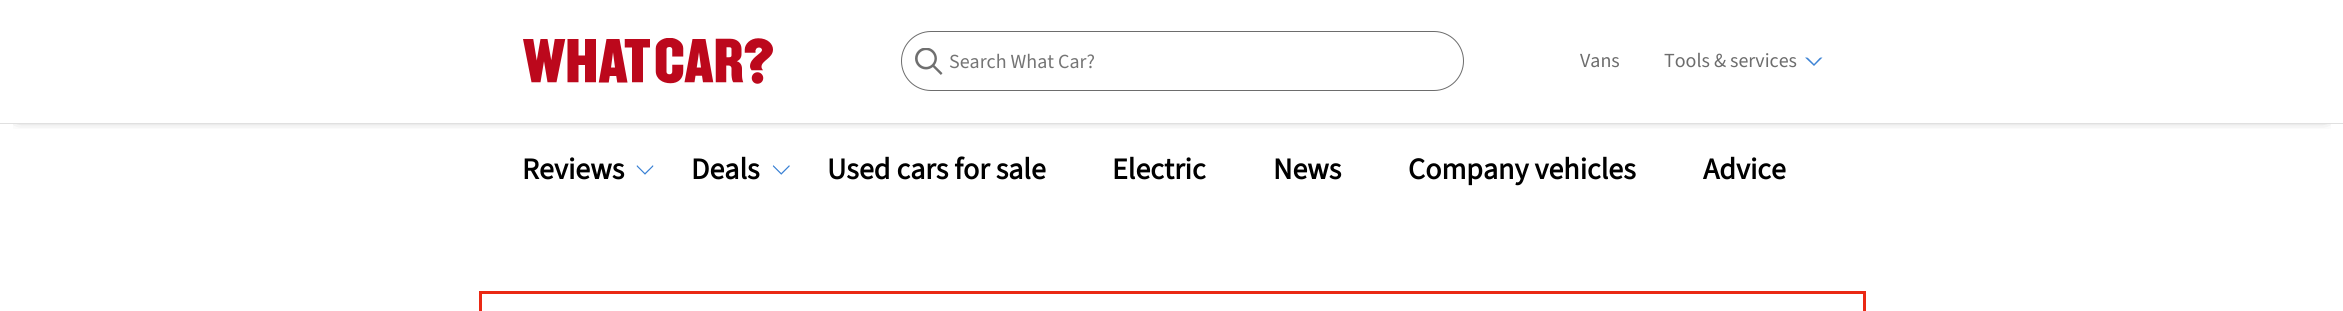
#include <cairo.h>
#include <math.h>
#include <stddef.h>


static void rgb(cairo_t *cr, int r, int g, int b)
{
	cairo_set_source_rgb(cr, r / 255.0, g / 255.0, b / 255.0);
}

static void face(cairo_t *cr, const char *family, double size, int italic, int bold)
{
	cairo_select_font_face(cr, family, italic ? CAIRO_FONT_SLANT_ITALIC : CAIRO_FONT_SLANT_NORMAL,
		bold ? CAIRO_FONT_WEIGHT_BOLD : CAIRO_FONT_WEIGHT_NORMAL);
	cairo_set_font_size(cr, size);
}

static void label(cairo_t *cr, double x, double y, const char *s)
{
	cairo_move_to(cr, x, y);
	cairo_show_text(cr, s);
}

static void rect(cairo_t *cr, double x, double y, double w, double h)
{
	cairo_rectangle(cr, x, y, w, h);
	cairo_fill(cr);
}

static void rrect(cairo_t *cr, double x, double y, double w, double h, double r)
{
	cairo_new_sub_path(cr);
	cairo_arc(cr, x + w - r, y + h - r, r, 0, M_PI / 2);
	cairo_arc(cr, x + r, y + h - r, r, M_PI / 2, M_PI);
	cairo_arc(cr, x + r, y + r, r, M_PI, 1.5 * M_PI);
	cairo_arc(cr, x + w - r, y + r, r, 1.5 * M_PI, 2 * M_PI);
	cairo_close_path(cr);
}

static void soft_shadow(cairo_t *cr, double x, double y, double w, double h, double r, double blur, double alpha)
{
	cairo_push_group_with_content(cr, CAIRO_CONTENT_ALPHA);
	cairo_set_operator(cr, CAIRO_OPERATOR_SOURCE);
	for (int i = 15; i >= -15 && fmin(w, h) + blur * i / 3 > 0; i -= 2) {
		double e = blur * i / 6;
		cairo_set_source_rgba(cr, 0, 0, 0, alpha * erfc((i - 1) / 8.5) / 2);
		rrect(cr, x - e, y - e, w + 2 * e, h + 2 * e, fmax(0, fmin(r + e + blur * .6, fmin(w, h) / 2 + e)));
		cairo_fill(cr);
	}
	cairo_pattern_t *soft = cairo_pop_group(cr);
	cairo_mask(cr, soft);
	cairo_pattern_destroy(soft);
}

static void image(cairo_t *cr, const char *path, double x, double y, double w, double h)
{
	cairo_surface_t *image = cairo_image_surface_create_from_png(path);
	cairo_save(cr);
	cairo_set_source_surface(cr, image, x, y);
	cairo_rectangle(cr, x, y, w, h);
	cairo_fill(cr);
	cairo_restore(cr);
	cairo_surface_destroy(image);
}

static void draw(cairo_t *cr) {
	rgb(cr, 255, 255, 255);
	cairo_paint(cr);
	cairo_save(cr);
	cairo_rectangle(cr, 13, 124, 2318, 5);
	cairo_clip(cr);
	rgb(cr, 32, 32, 32);
	soft_shadow(cr, 18, 25, 2308, 89, 0, 7.5, 1);
	cairo_restore(cr);
	rgb(cr, 224, 224, 224);
	rect(cr, 0, 123, 2343, 1);
	image(cr, "image0.png", 523, 38, 250, 46);
	rrect(cr, 901.5, 31.5, 562, 59, 29.5);
	rgb(cr, 109, 109, 109);
	cairo_set_line_width(cr, 1);
	cairo_stroke(cr);
	image(cr, "image1.png", 915, 48, 28, 27);
	face(cr, "Source Sans 3", 20, 0, 0);
	rgb(cr, 117, 117, 117);
	label(cr, 949, 68, "Search What Car?");
	rgb(cr, 109, 109, 109);
	label(cr, 1580, 67, "Vans");
	label(cr, 1664, 67, "Tools & services");
	rgb(cr, 63, 132, 213);
	cairo_new_path(cr);
	cairo_move_to(cr, 1805, 57.5);
	cairo_line_to(cr, 1822.5, 57.5);
	cairo_line_to(cr, 1814, 66);
	cairo_close_path(cr);
	cairo_fill(cr);
	rgb(cr, 255, 255, 255);
	cairo_new_path(cr);
	cairo_move_to(cr, 1805, 55);
	cairo_line_to(cr, 1822.5, 55);
	cairo_line_to(cr, 1814, 64);
	cairo_close_path(cr);
	cairo_fill(cr);
	face(cr, "Source Sans 3", 30, 0, 1);
	rgb(cr, 0, 0, 0);
	label(cr, 522, 179, "Reviews");
	image(cr, "image2.png", 636, 165, 18, 10);
	label(cr, 691, 179, "Deals");
	image(cr, "image3.png", 772, 165, 18, 10);
	label(cr, 827, 179, "Used cars for sale");
	label(cr, 1112, 179, "Electric");
	label(cr, 1273, 179, "News");
	label(cr, 1408, 179, "Company vehicles");
	label(cr, 1703, 179, "Advice");
	cairo_rectangle(cr, 480.5, 292.5, 1384, 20);
	rgb(cr, 234, 41, 20);
	cairo_set_line_width(cr, 3);
	cairo_stroke(cr);
}

int main(void) {
	cairo_surface_t *surface = cairo_image_surface_create(CAIRO_FORMAT_RGB24, 2343, 311);
	cairo_t *cr = cairo_create(surface);
	cairo_font_options_t *options = cairo_font_options_create();
	cairo_font_options_set_hint_metrics(options, CAIRO_HINT_METRICS_OFF);
	cairo_font_options_set_hint_style(options, CAIRO_HINT_STYLE_NONE);
	cairo_set_font_options(cr, options);
	cairo_set_miter_limit(cr, 4);
	draw(cr);
	cairo_surface_write_to_png(surface, "render.png");
	cairo_font_options_destroy(options);
	cairo_destroy(cr);
	cairo_surface_destroy(surface);
	return 0;
}
